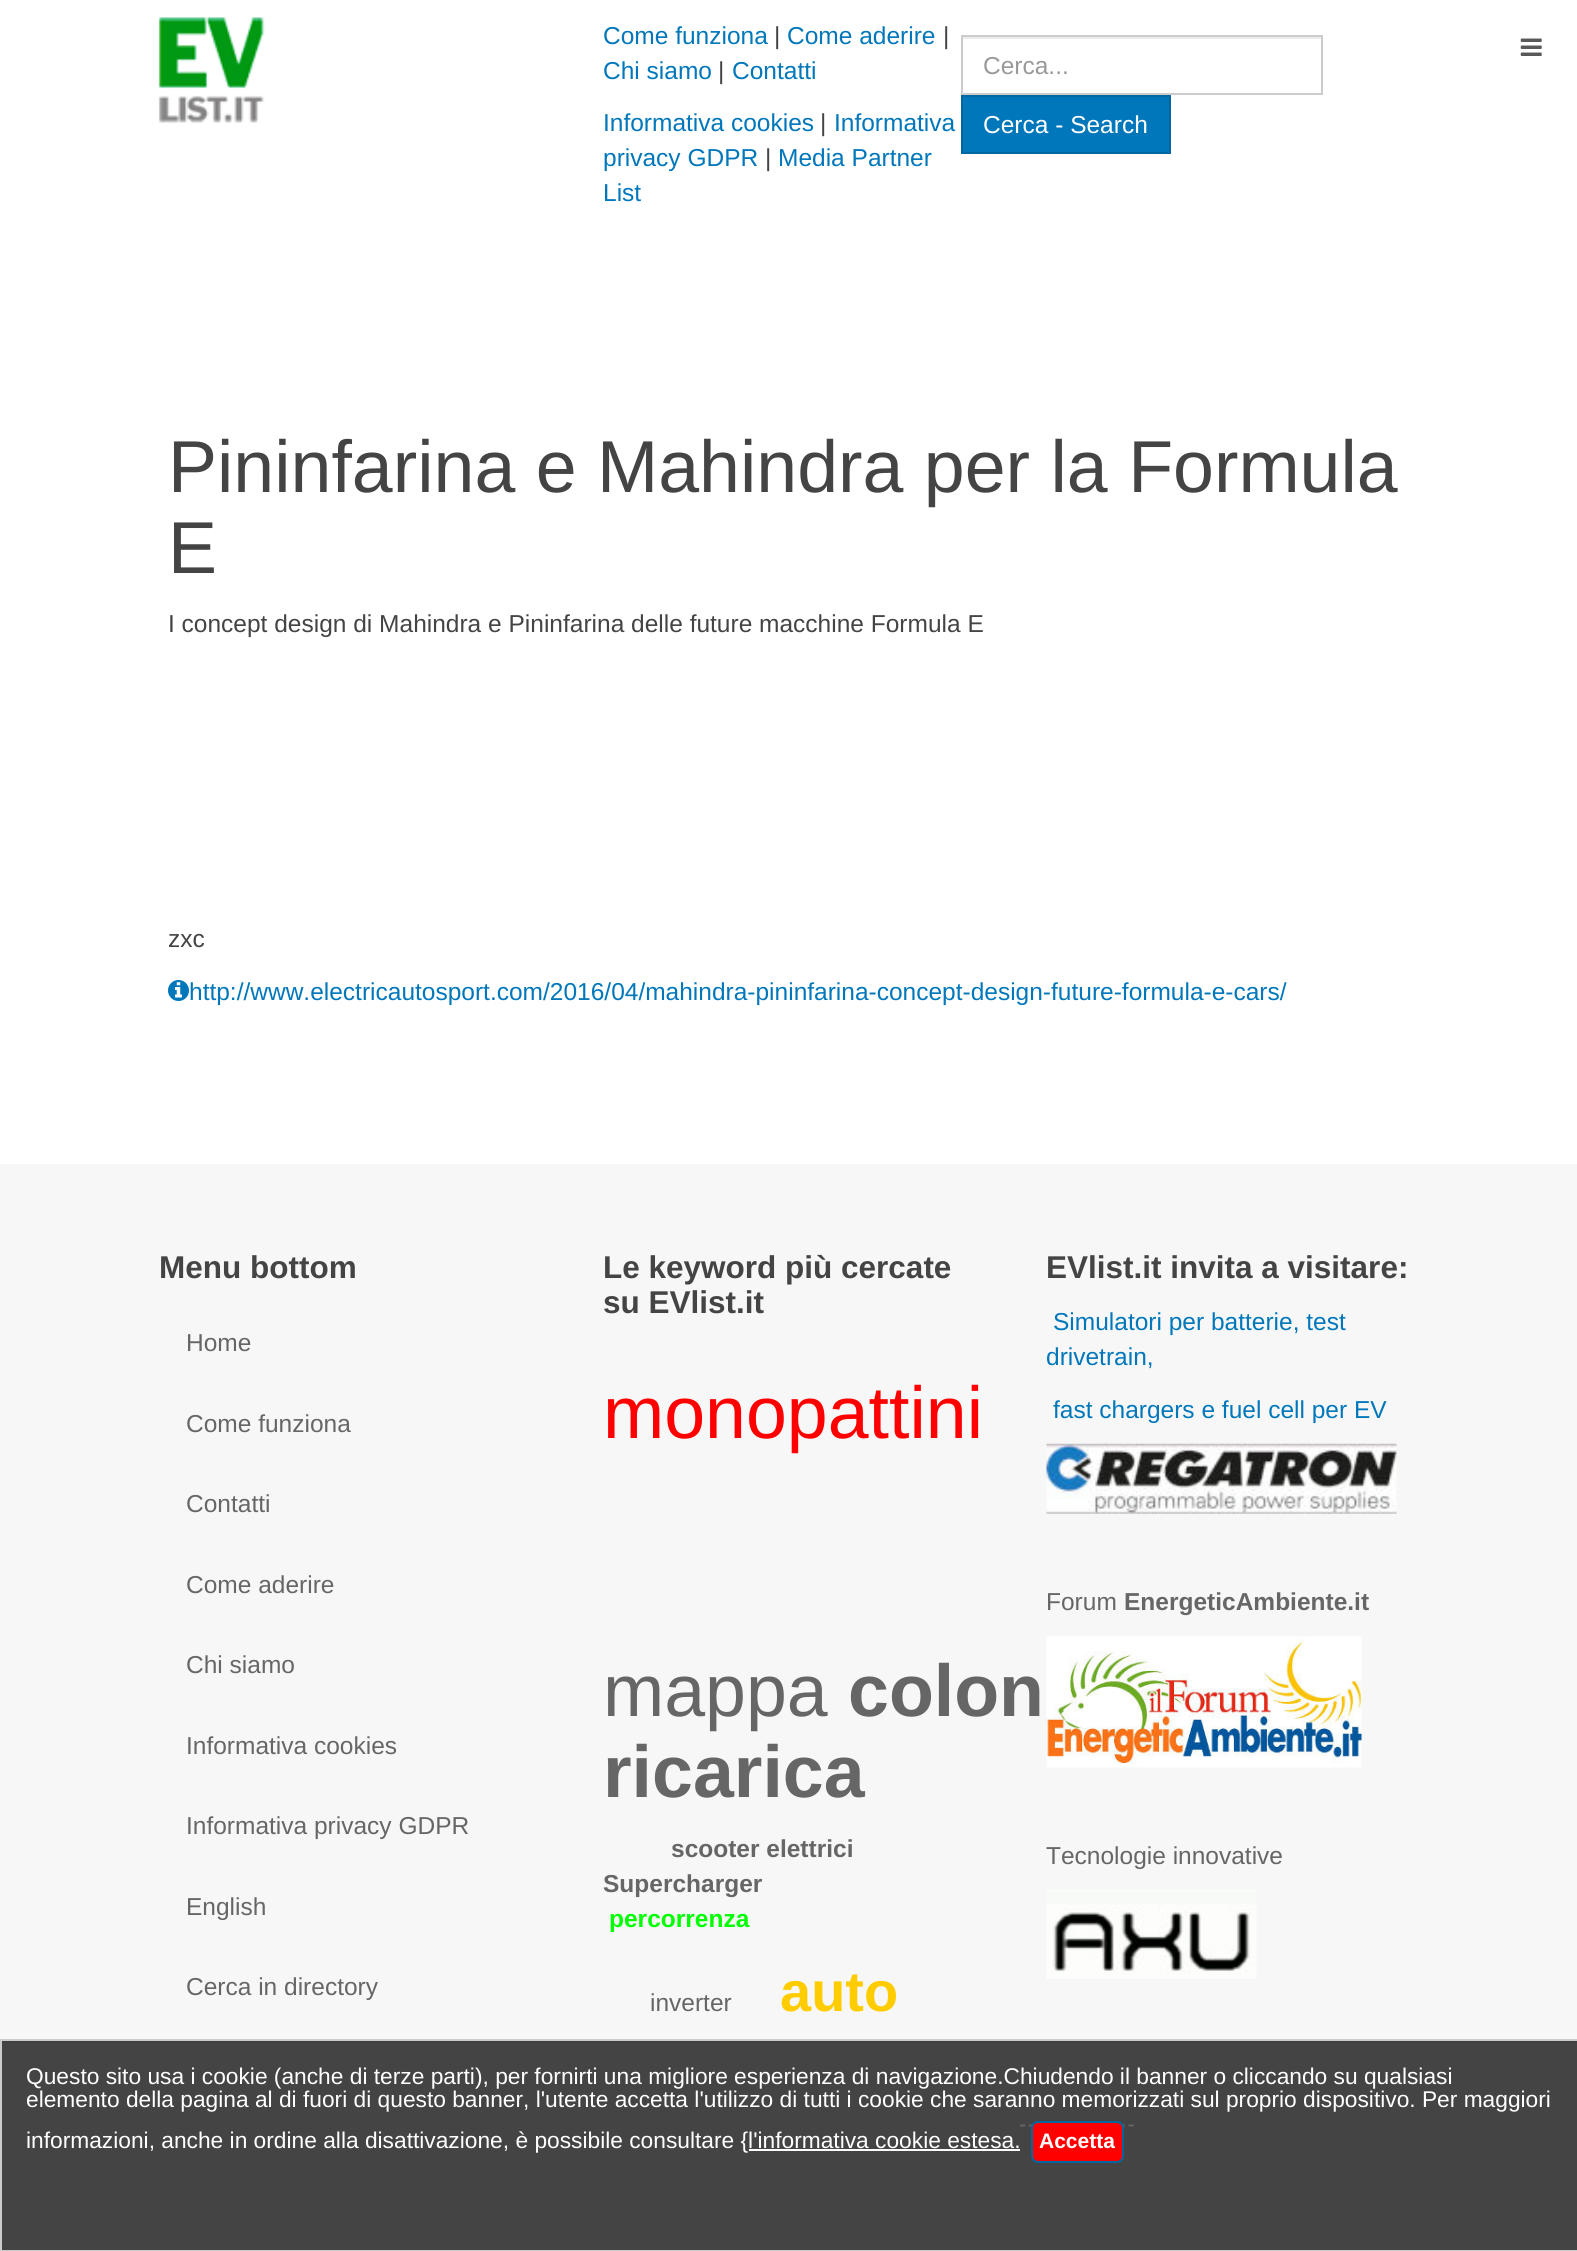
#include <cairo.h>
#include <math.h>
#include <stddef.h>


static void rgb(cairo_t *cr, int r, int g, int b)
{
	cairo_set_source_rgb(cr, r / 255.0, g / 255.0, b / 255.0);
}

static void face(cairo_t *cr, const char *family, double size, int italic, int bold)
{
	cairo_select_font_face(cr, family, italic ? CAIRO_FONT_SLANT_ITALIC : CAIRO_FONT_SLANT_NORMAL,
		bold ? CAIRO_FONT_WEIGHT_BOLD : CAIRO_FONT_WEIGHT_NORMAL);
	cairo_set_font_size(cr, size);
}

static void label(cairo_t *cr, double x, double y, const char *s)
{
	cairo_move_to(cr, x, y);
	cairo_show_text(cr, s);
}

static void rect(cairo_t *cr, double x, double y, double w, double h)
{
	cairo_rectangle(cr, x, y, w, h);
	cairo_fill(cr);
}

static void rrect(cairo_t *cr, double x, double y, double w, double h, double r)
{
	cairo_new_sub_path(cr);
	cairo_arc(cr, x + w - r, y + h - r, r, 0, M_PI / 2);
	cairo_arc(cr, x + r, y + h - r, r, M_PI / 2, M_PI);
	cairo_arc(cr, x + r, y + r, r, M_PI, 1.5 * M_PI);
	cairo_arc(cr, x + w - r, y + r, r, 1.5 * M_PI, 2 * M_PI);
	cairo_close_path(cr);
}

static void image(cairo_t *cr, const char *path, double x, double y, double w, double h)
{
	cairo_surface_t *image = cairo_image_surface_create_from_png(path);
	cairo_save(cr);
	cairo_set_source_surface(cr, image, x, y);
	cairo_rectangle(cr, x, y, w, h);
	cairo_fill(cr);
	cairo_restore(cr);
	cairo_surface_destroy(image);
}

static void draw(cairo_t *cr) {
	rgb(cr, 255, 255, 255);
	cairo_paint(cr);
	image(cr, "image0.png", 158, 17, 107, 106);
	face(cr, "Liberation Sans", 24.5, 0, 0);
	rgb(cr, 0, 119, 187);
	label(cr, 603, 44, "Come funziona");
	rgb(cr, 68, 68, 68);
	label(cr, 774, 44, "|");
	rgb(cr, 0, 119, 187);
	label(cr, 787, 44, "Come aderire");
	rgb(cr, 68, 68, 68);
	label(cr, 943, 44, "|");
	rgb(cr, 0, 119, 187);
	label(cr, 603, 79, "Chi siamo");
	rgb(cr, 68, 68, 68);
	label(cr, 718, 79, "|");
	rgb(cr, 0, 119, 187);
	label(cr, 732, 79, "Contatti");
	label(cr, 603, 131, "Informativa cookies");
	rgb(cr, 68, 68, 68);
	label(cr, 820, 131, "|");
	rgb(cr, 0, 119, 187);
	label(cr, 834, 131, "Informativa");
	label(cr, 603, 166, "privacy GDPR");
	rgb(cr, 68, 68, 68);
	label(cr, 765, 166, "|");
	rgb(cr, 0, 119, 187);
	label(cr, 778, 166, "Media Partner");
	label(cr, 603, 201, "List");
	rgb(cr, 236, 236, 236);
	rect(cr, 963, 37, 358, 2);
	cairo_rectangle(cr, 962, 36, 360, 58);
	rgb(cr, 204, 204, 204);
	cairo_stroke(cr);
	rgb(cr, 153, 153, 153);
	label(cr, 983, 74, "Cerca...");
	rgb(cr, 0, 119, 187);
	cairo_rectangle(cr, 962, 96, 208, 57);
	cairo_fill_preserve(cr);
	rgb(cr, 0, 103, 162);
	cairo_stroke(cr);
	rgb(cr, 255, 255, 255);
	label(cr, 983, 133, "Cerca - Search");
	image(cr, "image1.png", 1520, 38, 22, 18);
	face(cr, "Liberation Sans", 73.5, 0, 0);
	rgb(cr, 68, 68, 68);
	label(cr, 168, 492, "Pininfarina e Mahindra per la Formula");
	label(cr, 168, 573, "E");
	face(cr, "Liberation Sans", 24.5, 0, 0);
	label(cr, 168, 632, "I concept design di Mahindra e Pininfarina delle future macchine Formula E");
	label(cr, 168, 947, "zxc");
	image(cr, "image2.png", 168, 980, 21, 21);
	rgb(cr, 0, 119, 187);
	label(cr, 189, 1000, "http://www.electricautosport.com/2016/04/mahindra-pininfarina-concept-design-future-formula-e-cars/");
	rgb(cr, 247, 247, 247);
	rect(cr, 0, 1164, 1577, 875);
	face(cr, "Liberation Sans", 31.5, 0, 1);
	rgb(cr, 68, 68, 68);
	label(cr, 159, 1278, "Menu bottom");
	face(cr, "Liberation Sans", 24.5, 0, 0);
	rgb(cr, 102, 102, 102);
	label(cr, 186, 1351, "Home");
	label(cr, 186, 1432, "Come funziona");
	label(cr, 186, 1512, "Contatti");
	label(cr, 186, 1593, "Come aderire");
	label(cr, 186, 1673, "Chi siamo");
	label(cr, 186, 1754, "Informativa cookies");
	label(cr, 186, 1834, "Informativa privacy GDPR");
	label(cr, 186, 1915, "English");
	label(cr, 186, 1995, "Cerca in directory");
	face(cr, "Liberation Sans", 31.5, 0, 1);
	rgb(cr, 68, 68, 68);
	label(cr, 603, 1278, "Le keyword più cercate");
	label(cr, 603, 1313, "su EVlist.it");
	face(cr, "Liberation Sans", 73.5, 0, 0);
	rgb(cr, 255, 0, 0);
	label(cr, 603, 1438, "monopattini");
	rgb(cr, 102, 102, 102);
	label(cr, 603, 1716, "mappa");
	face(cr, "Liberation Sans", 73.5, 0, 1);
	label(cr, 848, 1716, "colon");
	label(cr, 603, 1797, "ricarica");
	face(cr, "Liberation Sans", 24.5, 0, 1);
	label(cr, 671, 1857, "scooter elettrici");
	label(cr, 603, 1892, "Supercharger");
	rgb(cr, 0, 255, 0);
	label(cr, 609, 1927, "percorrenza");
	face(cr, "Liberation Sans", 24.5, 0, 0);
	rgb(cr, 102, 102, 102);
	label(cr, 650, 2011, "inverter");
	face(cr, "Liberation Sans", 56, 0, 1);
	rgb(cr, 255, 204, 0);
	label(cr, 780, 2011, "auto");
	face(cr, "Liberation Sans", 31.5, 0, 1);
	rgb(cr, 68, 68, 68);
	label(cr, 1046, 1278, "EVlist.it invita a visitare:");
	face(cr, "Liberation Sans", 24.5, 0, 0);
	rgb(cr, 0, 119, 187);
	label(cr, 1053, 1330, "Simulatori per batterie, test");
	label(cr, 1046, 1365, "drivetrain,");
	label(cr, 1053, 1418, "fast chargers e fuel cell per EV");
	image(cr, "image3.png", 1046, 1443, 351, 71);
	rgb(cr, 102, 102, 102);
	label(cr, 1046, 1610, "Forum");
	face(cr, "Liberation Sans", 24.5, 0, 1);
	label(cr, 1124, 1610, "EnergeticAmbiente.it");
	image(cr, "image4.png", 1046, 1636, 316, 132);
	face(cr, "Liberation Sans", 24.5, 0, 0);
	label(cr, 1046, 1864, "Tecnologie innovative");
	image(cr, "image5.png", 1046, 1890, 211, 89);
	rgb(cr, 68, 68, 68);
	rect(cr, 2, 2043, 1575, 207);
	cairo_rectangle(cr, 1, 2040, 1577, 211);
	rgb(cr, 204, 204, 204);
	cairo_stroke(cr);
	rgb(cr, 65, 65, 65);
	rect(cr, 2, 2041, 1575, 2);
	face(cr, "Liberation Sans", 22.75, 0, 0);
	rgb(cr, 255, 255, 255);
	label(cr, 26, 2084, "Questo sito usa i cookie (anche di terze parti), per fornirti una migliore esperienza di navigazione.Chiudendo il banner o cliccando su qualsiasi");
	label(cr, 26, 2107, "elemento della pagina al di fuori di questo banner, l'utente accetta l'utilizzo di tutti i cookie che saranno memorizzati sul proprio dispositivo. Per maggiori");
	label(cr, 26, 2148, "informazioni, anche in ordine alla disattivazione, è possibile consultare {l'informativa cookie estesa.");
	cairo_new_path(cr);
	cairo_move_to(cr, 1020, 2125.5);
	cairo_line_to(cr, 1134, 2125.5);
	rgb(cr, 102, 102, 102);
	cairo_set_line_width(cr, 1.8);
	cairo_set_dash(cr, (double[]){5.25, 3.8}, 2, 0);
	cairo_stroke(cr);
	rgb(cr, 255, 0, 0);
	rrect(cr, 1032, 2122, 91, 40, 6);
	cairo_fill_preserve(cr);
	rgb(cr, 0, 103, 162);
	cairo_set_line_width(cr, 2);
	cairo_set_dash(cr, NULL, 0, 0);
	cairo_stroke(cr);
	face(cr, "Liberation Sans", 21, 0, 1);
	rgb(cr, 255, 255, 255);
	label(cr, 1039, 2148, "Accetta");
	rect(cr, 749, 2149, 271, 2);
}

int main(void) {
	cairo_surface_t *surface = cairo_image_surface_create(CAIRO_FORMAT_RGB24, 1577, 2251);
	cairo_t *cr = cairo_create(surface);
	cairo_font_options_t *options = cairo_font_options_create();
	cairo_font_options_set_hint_metrics(options, CAIRO_HINT_METRICS_OFF);
	cairo_font_options_set_hint_style(options, CAIRO_HINT_STYLE_NONE);
	cairo_set_font_options(cr, options);
	cairo_set_miter_limit(cr, 4);
	draw(cr);
	cairo_surface_write_to_png(surface, "render.png");
	cairo_font_options_destroy(options);
	cairo_destroy(cr);
	cairo_surface_destroy(surface);
	return 0;
}
